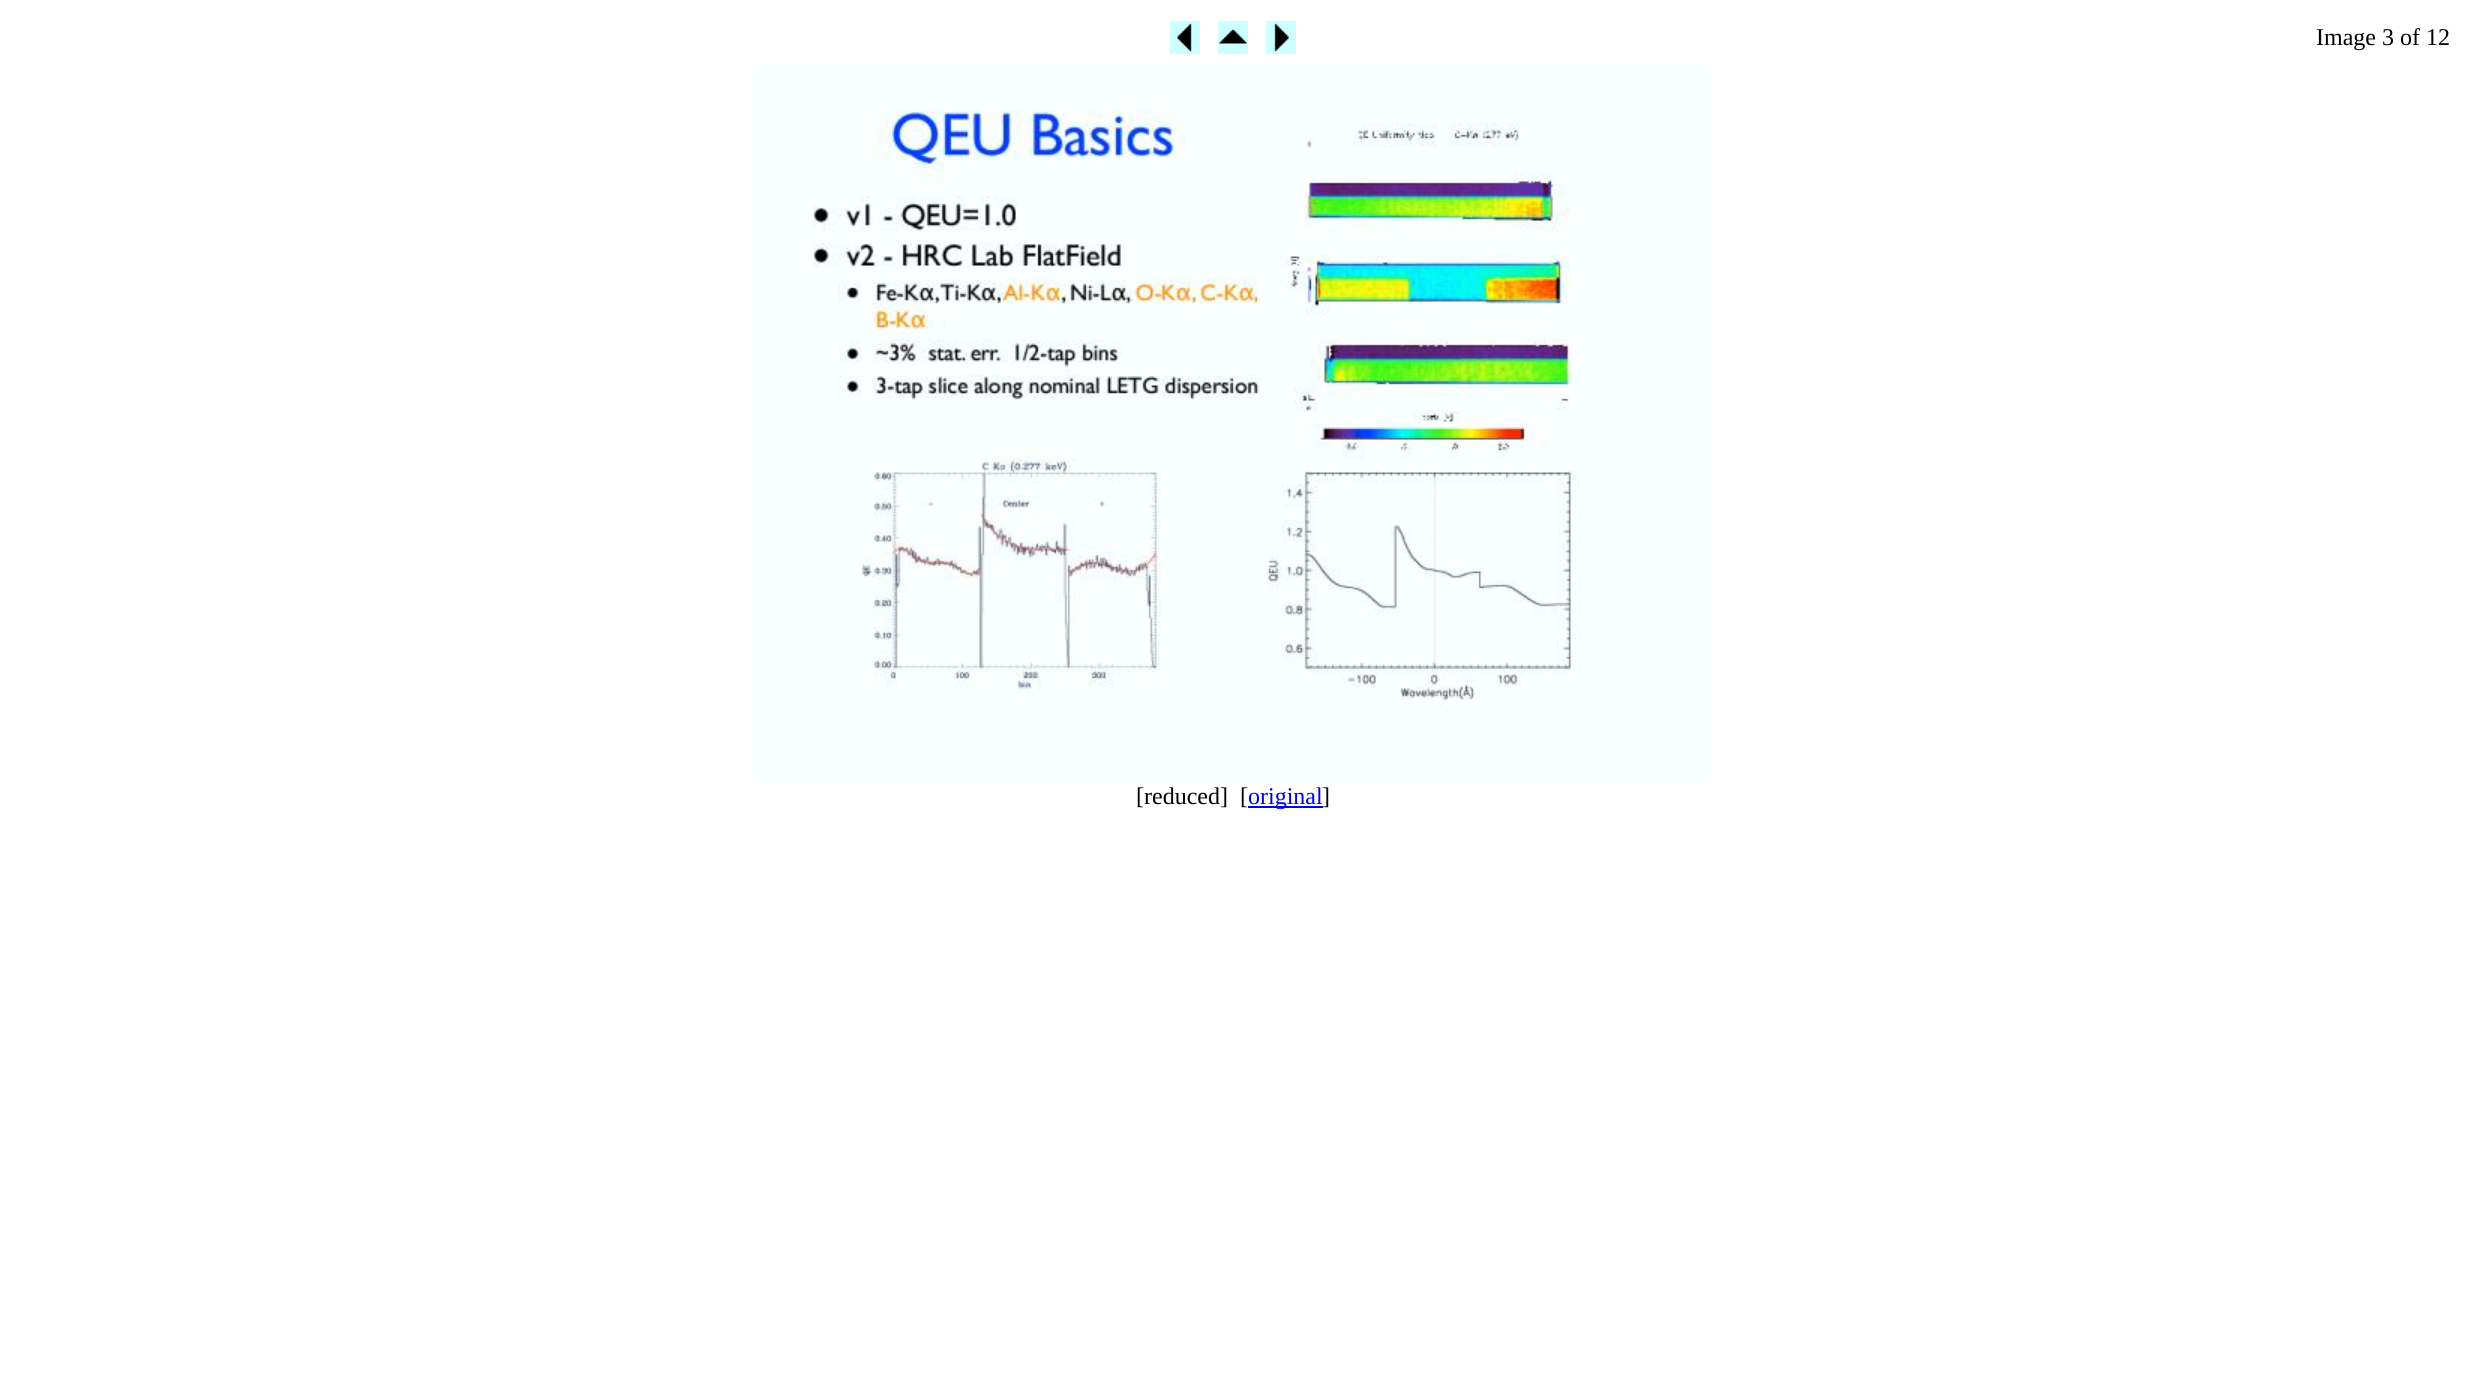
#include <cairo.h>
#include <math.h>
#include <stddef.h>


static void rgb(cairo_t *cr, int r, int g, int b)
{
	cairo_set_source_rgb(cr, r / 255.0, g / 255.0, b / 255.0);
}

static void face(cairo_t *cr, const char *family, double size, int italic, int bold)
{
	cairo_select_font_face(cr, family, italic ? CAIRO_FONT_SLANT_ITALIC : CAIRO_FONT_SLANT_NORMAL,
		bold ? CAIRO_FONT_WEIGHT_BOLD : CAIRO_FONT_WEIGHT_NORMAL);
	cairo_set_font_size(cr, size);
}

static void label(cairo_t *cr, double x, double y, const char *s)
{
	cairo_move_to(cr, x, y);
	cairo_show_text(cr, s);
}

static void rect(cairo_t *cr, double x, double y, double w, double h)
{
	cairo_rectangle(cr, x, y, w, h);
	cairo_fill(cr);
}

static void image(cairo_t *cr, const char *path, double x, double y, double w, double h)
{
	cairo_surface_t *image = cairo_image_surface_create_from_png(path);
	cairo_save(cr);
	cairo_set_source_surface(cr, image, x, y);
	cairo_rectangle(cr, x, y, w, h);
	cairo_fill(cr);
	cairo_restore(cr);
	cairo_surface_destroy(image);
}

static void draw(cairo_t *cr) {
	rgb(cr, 255, 255, 255);
	cairo_paint(cr);
	image(cr, "image0.png", 1170, 21, 30, 33);
	image(cr, "image1.png", 1218, 21, 30, 33);
	image(cr, "image2.png", 1266, 21, 30, 33);
	face(cr, "Liberation Serif", 24, 0, 0);
	rgb(cr, 0, 0, 0);
	label(cr, 2316, 45, "Image 3 of 12");
	image(cr, "image3.png", 753, 63, 960, 720);
	label(cr, 1136, 804, "[reduced]");
	label(cr, 1240, 804, "[");
	rgb(cr, 0, 0, 238);
	rect(cr, 1248, 806, 75, 2);
	label(cr, 1248, 804, "original");
	rgb(cr, 0, 0, 0);
	label(cr, 1322, 804, "]");
}

int main(void) {
	cairo_surface_t *surface = cairo_image_surface_create(CAIRO_FORMAT_RGB24, 2466, 1400);
	cairo_t *cr = cairo_create(surface);
	cairo_font_options_t *options = cairo_font_options_create();
	cairo_font_options_set_hint_metrics(options, CAIRO_HINT_METRICS_OFF);
	cairo_font_options_set_hint_style(options, CAIRO_HINT_STYLE_NONE);
	cairo_set_font_options(cr, options);
	cairo_set_miter_limit(cr, 4);
	draw(cr);
	cairo_surface_write_to_png(surface, "render.png");
	cairo_font_options_destroy(options);
	cairo_destroy(cr);
	cairo_surface_destroy(surface);
	return 0;
}
